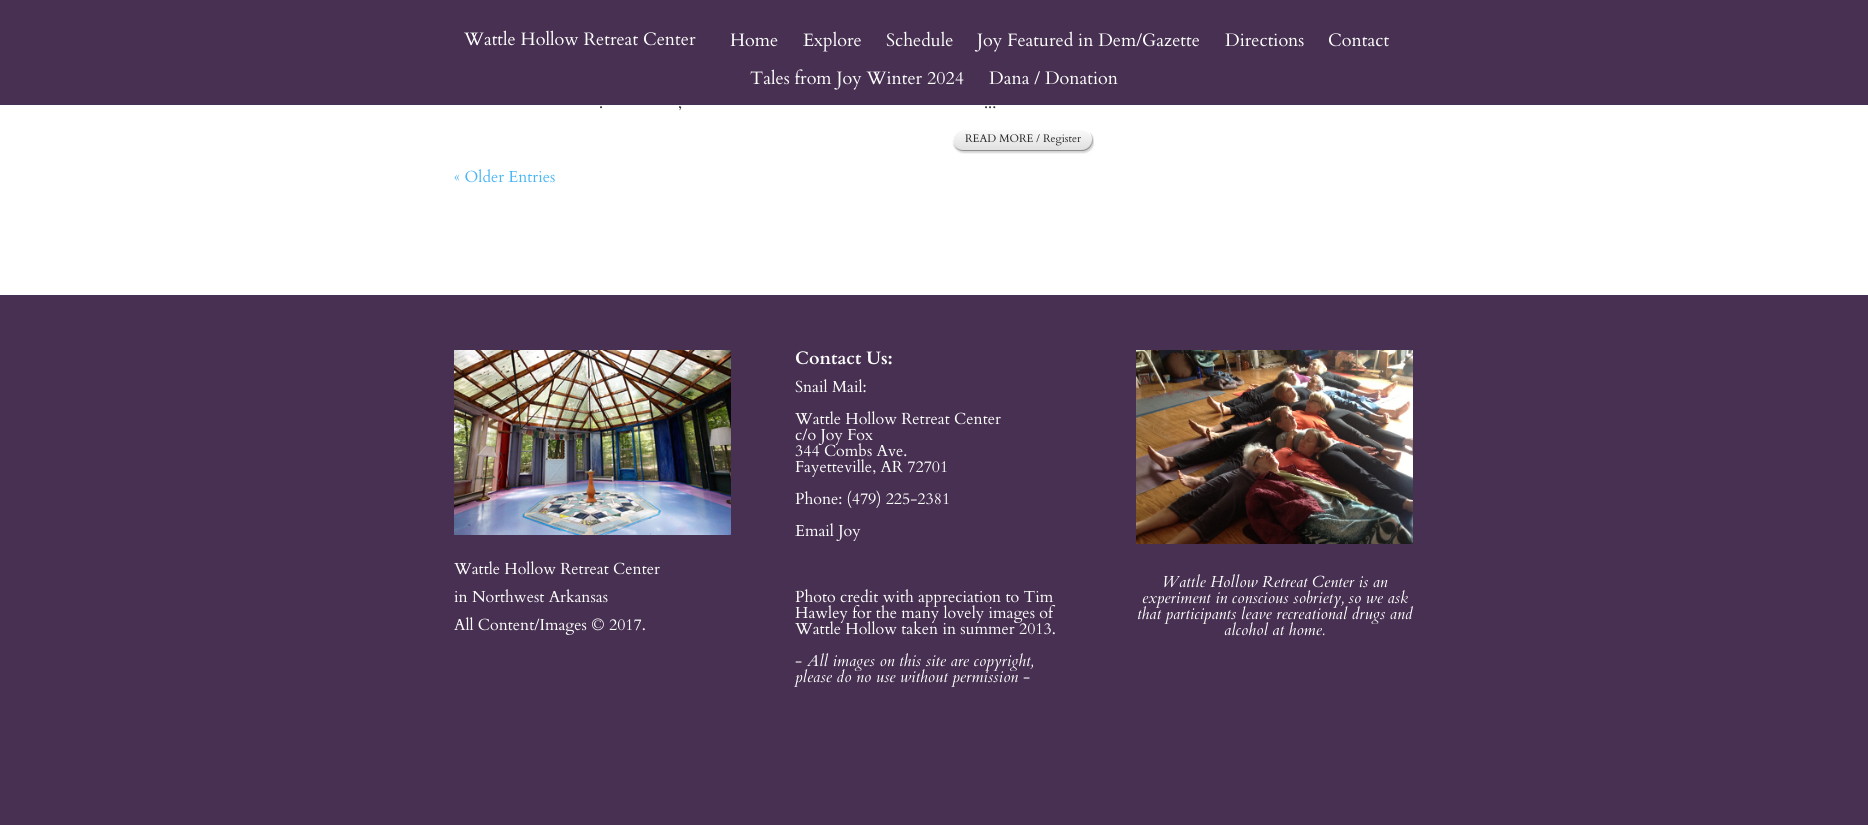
#include <cairo.h>
#include <math.h>
#include <stddef.h>


static void rgb(cairo_t *cr, int r, int g, int b)
{
	cairo_set_source_rgb(cr, r / 255.0, g / 255.0, b / 255.0);
}

static void face(cairo_t *cr, const char *family, double size, int italic, int bold)
{
	cairo_select_font_face(cr, family, italic ? CAIRO_FONT_SLANT_ITALIC : CAIRO_FONT_SLANT_NORMAL,
		bold ? CAIRO_FONT_WEIGHT_BOLD : CAIRO_FONT_WEIGHT_NORMAL);
	cairo_set_font_size(cr, size);
}

static void label(cairo_t *cr, double x, double y, const char *s)
{
	cairo_move_to(cr, x, y);
	cairo_show_text(cr, s);
}

static void rect(cairo_t *cr, double x, double y, double w, double h)
{
	cairo_rectangle(cr, x, y, w, h);
	cairo_fill(cr);
}

static void image(cairo_t *cr, const char *path, double x, double y, double w, double h)
{
	cairo_surface_t *image = cairo_image_surface_create_from_png(path);
	cairo_save(cr);
	cairo_set_source_surface(cr, image, x, y);
	cairo_rectangle(cr, x, y, w, h);
	cairo_fill(cr);
	cairo_restore(cr);
	cairo_surface_destroy(image);
}

static void draw(cairo_t *cr) {
	rgb(cr, 71, 48, 81);
	cairo_paint(cr);
	face(cr, "Cardo", 18, 0, 0);
	rgb(cr, 255, 255, 255);
	label(cr, 464, 45, "Wattle Hollow Retreat Center");
	label(cr, 730, 46, "Home");
	label(cr, 803, 46, "Explore");
	label(cr, 886, 46, "Schedule");
	label(cr, 977, 46, "Joy Featured in Dem/Gazette");
	label(cr, 1225, 46, "Directions");
	label(cr, 1328, 46, "Contact");
	label(cr, 750, 84, "Tales from Joy Winter 2024");
	label(cr, 989, 84, "Dana / Donation");
	rect(cr, 0, 105, 1868, 190);
	face(cr, "Cardo", 16, 0, 0);
	rgb(cr, 51, 51, 51);
	label(cr, 599, 108, ".");
	label(cr, 678, 108, ",");
	label(cr, 984, 108, "...");
	image(cr, "image0.png", 1081, 130, 13, 24);
	image(cr, "image1.png", 952, 130, 129, 24);
	face(cr, "Cardo", 11, 0, 0);
	rgb(cr, 40, 40, 40);
	label(cr, 965, 142, "READ MORE / Register");
	face(cr, "Cardo", 16, 0, 0);
	rgb(cr, 75, 182, 245);
	label(cr, 454, 182, "« Older Entries");
	image(cr, "image2.png", 454, 350, 277, 185);
	rgb(cr, 255, 255, 255);
	label(cr, 454, 574, "Wattle Hollow Retreat Center");
	label(cr, 454, 602, "in Northwest Arkansas");
	label(cr, 454, 630, "All Content/Images © 2017.");
	face(cr, "Cardo", 18, 0, 1);
	label(cr, 795, 364, "Contact Us:");
	face(cr, "Cardo", 16, 0, 0);
	label(cr, 795, 392, "Snail Mail:");
	label(cr, 795, 424, "Wattle Hollow Retreat Center");
	label(cr, 795, 440, "c/o Joy Fox");
	label(cr, 795, 456, "344 Combs Ave.");
	label(cr, 795, 472, "Fayetteville, AR 72701");
	label(cr, 795, 504, "Phone: (479) 225-2381");
	label(cr, 795, 536, "Email Joy");
	label(cr, 795, 602, "Photo credit with appreciation to Tim");
	label(cr, 795, 618, "Hawley for the many lovely images of");
	label(cr, 795, 634, "Wattle Hollow taken in summer 2013.");
	label(cr, 795, 666, "-");
	face(cr, "Cardo", 16, 1, 0);
	label(cr, 807, 666, "All images on this site are copyright,");
	label(cr, 795, 682, "please do no use without permission");
	face(cr, "Cardo", 16, 0, 0);
	label(cr, 1023, 682, "-");
	image(cr, "image3.png", 1136, 350, 277, 194);
	face(cr, "Cardo", 16, 1, 0);
	label(cr, 1162, 587, "Wattle Hollow Retreat Center is an");
	label(cr, 1142, 603, "experiment in conscious sobriety, so we ask");
	label(cr, 1137, 619, "that participants leave recreational drugs and");
	label(cr, 1224, 635, "alcohol at home.");
}

int main(void) {
	cairo_surface_t *surface = cairo_image_surface_create(CAIRO_FORMAT_RGB24, 1868, 825);
	cairo_t *cr = cairo_create(surface);
	cairo_font_options_t *options = cairo_font_options_create();
	cairo_font_options_set_hint_metrics(options, CAIRO_HINT_METRICS_OFF);
	cairo_font_options_set_hint_style(options, CAIRO_HINT_STYLE_NONE);
	cairo_set_font_options(cr, options);
	cairo_set_miter_limit(cr, 4);
	draw(cr);
	cairo_surface_write_to_png(surface, "render.png");
	cairo_font_options_destroy(options);
	cairo_destroy(cr);
	cairo_surface_destroy(surface);
	return 0;
}
